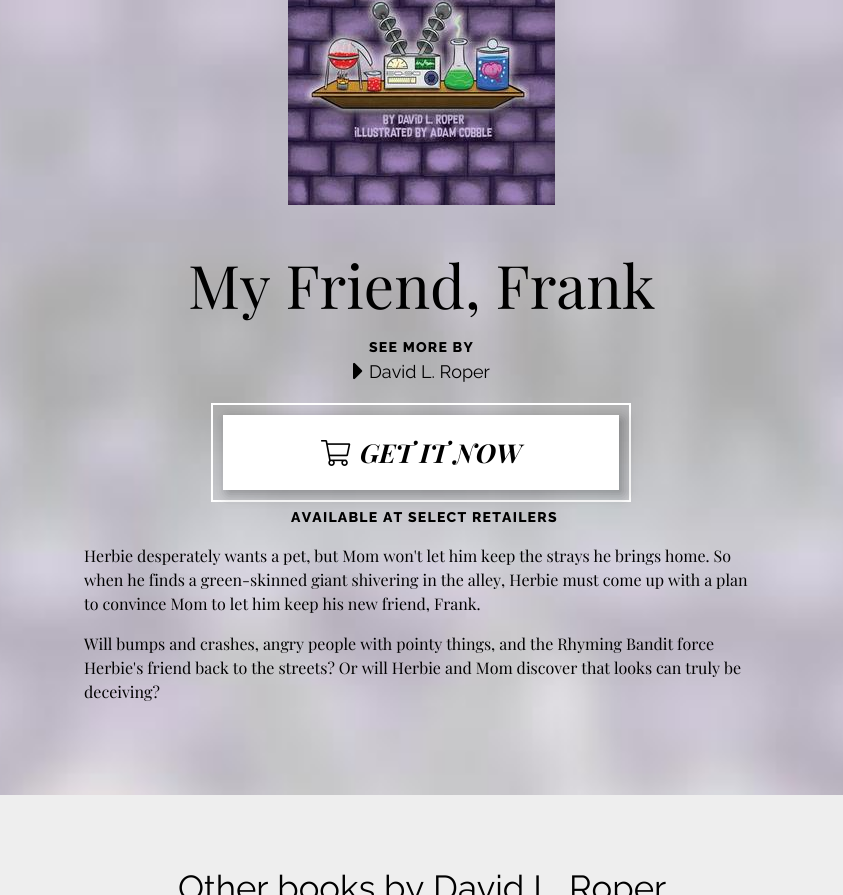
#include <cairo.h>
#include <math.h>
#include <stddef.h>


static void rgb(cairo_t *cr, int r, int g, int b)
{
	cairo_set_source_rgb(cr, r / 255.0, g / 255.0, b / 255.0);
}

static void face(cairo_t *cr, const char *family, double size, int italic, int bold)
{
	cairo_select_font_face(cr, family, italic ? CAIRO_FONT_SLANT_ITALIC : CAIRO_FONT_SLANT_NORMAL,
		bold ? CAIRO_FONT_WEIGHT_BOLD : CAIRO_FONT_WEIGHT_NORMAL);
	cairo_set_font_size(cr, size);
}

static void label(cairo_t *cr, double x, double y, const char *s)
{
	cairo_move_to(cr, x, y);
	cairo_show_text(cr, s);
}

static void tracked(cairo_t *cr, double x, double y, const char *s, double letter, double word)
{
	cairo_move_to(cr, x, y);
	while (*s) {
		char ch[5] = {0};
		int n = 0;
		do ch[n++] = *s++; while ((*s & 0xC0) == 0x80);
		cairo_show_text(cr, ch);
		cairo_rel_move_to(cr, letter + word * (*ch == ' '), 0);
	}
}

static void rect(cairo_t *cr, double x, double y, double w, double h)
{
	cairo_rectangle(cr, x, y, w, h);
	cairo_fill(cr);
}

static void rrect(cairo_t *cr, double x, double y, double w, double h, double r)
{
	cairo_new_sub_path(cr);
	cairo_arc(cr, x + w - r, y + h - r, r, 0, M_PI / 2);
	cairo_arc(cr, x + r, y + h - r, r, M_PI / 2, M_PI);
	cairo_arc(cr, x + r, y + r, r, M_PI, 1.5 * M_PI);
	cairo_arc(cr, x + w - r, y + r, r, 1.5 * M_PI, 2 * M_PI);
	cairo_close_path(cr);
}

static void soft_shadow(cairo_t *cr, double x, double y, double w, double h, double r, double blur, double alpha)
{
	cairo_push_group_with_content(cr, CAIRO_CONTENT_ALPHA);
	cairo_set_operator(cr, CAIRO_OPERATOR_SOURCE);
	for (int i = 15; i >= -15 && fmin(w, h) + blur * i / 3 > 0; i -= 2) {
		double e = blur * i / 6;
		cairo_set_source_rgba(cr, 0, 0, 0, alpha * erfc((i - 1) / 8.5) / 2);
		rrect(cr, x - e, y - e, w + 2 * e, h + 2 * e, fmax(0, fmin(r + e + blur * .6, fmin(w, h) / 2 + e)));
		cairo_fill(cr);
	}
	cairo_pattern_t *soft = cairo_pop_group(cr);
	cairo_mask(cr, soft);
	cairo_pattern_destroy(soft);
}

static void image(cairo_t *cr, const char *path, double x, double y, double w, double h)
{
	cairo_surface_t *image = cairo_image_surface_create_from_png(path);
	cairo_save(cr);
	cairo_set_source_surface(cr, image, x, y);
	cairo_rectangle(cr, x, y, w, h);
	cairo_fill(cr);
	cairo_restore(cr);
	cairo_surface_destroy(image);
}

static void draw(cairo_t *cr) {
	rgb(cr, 255, 255, 255);
	cairo_paint(cr);
	image(cr, "image0.png", 0, 0, 843, 795);
	image(cr, "image1.png", 288, 0, 267, 205);
	face(cr, "Playfair Display", 60, 0, 0);
	rgb(cr, 0, 0, 0);
	label(cr, 188, 309, "My Friend, Frank");
	image(cr, "image2.png", 353, 362, 10, 18);
	face(cr, "Raleway ExtraBold", 14, 0, 0);
	tracked(cr, 369, 352, "SEE MORE BY", 1.25, 0);
	face(cr, "Raleway", 18, 0, 0);
	label(cr, 369, 378, "David L. Roper");
	cairo_rectangle(cr, 212, 404, 418, 97);
	rgb(cr, 255, 255, 255);
	cairo_stroke(cr);
	rgb(cr, 0, 0, 0);
	soft_shadow(cr, 227, 419, 396, 75, 0, 7, 0.3);
	rgb(cr, 255, 255, 255);
	rect(cr, 223, 415, 396, 75);
	image(cr, "image3.png", 321, 440, 30, 26);
	face(cr, "Playfair Display", 26, 1, 1);
	rgb(cr, 0, 0, 0);
	label(cr, 360, 463, "GET IT NOW");
	face(cr, "Raleway ExtraBold", 14, 0, 0);
	tracked(cr, 291, 522, "AVAILABLE AT SELECT RETAILERS", 1.25, 0);
	face(cr, "Playfair Display", 16, 0, 0);
	label(cr, 84, 562, "Herbie desperately wants a pet, but Mom won't let him keep the strays he brings home. So");
	label(cr, 84, 586, "when he finds a green-skinned giant shivering in the alley, Herbie must come up with a plan");
	label(cr, 84, 610, "to convince Mom to let him keep his new friend, Frank.");
	label(cr, 84, 650, "Will bumps and crashes, angry people with pointy things, and the Rhyming Bandit force");
	label(cr, 84, 674, "Herbie's friend back to the streets? Or will Herbie and Mom discover that looks can truly be");
	label(cr, 84, 698, "deceiving?");
	rgb(cr, 238, 238, 238);
	rect(cr, 0, 795, 843, 41);
	rect(cr, 0, 836, 843, 59);
	face(cr, "Raleway", 34.7, 0, 0);
	rgb(cr, 0, 0, 0);
	label(cr, 178, 900, "Other books by David L. Roper");
}

int main(void) {
	cairo_surface_t *surface = cairo_image_surface_create(CAIRO_FORMAT_RGB24, 843, 895);
	cairo_t *cr = cairo_create(surface);
	cairo_font_options_t *options = cairo_font_options_create();
	cairo_font_options_set_hint_metrics(options, CAIRO_HINT_METRICS_OFF);
	cairo_font_options_set_hint_style(options, CAIRO_HINT_STYLE_NONE);
	cairo_set_font_options(cr, options);
	cairo_set_miter_limit(cr, 4);
	draw(cr);
	cairo_surface_write_to_png(surface, "render.png");
	cairo_font_options_destroy(options);
	cairo_destroy(cr);
	cairo_surface_destroy(surface);
	return 0;
}
